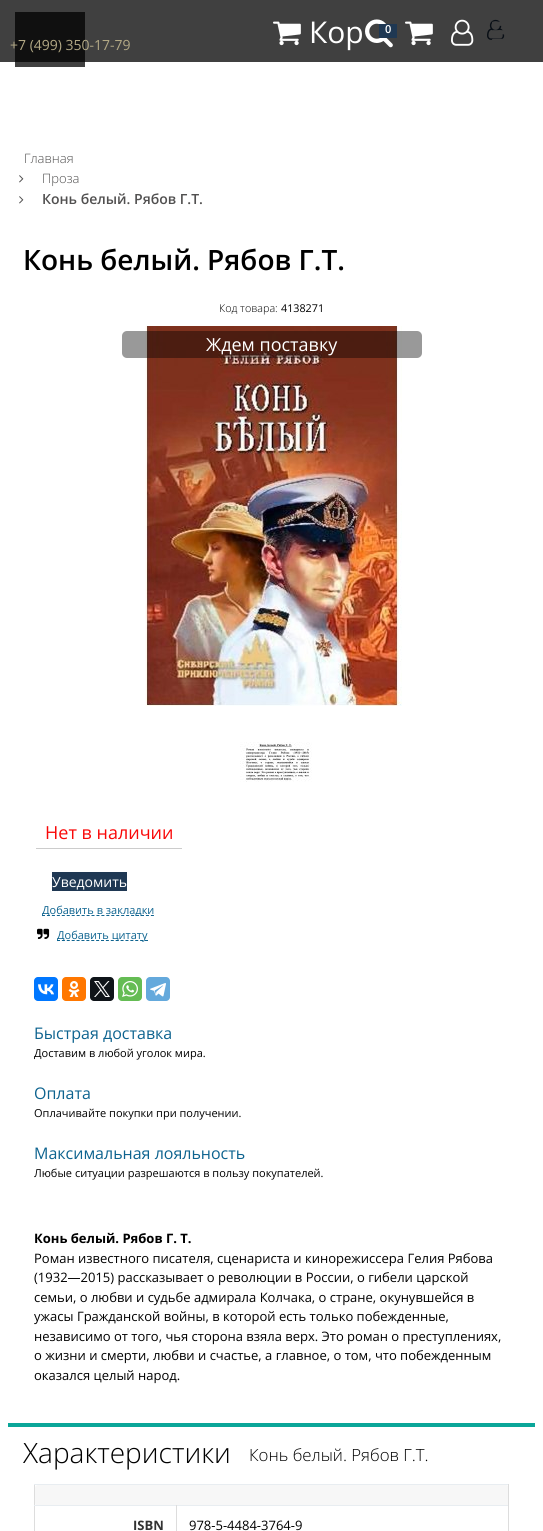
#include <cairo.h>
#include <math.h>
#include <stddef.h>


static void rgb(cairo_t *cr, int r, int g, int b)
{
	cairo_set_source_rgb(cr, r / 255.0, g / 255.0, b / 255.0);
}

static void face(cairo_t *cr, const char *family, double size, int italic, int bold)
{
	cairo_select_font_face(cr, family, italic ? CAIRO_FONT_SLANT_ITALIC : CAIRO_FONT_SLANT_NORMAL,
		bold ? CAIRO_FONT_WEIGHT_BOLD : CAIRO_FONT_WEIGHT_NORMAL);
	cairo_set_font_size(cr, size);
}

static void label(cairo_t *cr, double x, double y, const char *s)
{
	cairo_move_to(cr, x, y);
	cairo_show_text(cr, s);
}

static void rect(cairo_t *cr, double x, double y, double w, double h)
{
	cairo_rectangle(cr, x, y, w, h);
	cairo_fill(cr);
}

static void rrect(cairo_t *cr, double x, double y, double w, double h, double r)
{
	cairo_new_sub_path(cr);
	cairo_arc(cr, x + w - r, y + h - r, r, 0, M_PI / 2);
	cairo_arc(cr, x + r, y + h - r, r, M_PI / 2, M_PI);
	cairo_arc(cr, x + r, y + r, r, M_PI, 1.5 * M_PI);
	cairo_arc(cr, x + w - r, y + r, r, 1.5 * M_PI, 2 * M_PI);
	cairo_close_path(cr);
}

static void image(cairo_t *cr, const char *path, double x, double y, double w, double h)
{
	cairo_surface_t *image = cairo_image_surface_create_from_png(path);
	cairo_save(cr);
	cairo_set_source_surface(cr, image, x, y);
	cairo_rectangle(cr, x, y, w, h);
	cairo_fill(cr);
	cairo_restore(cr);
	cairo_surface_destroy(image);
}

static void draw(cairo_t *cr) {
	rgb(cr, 255, 255, 255);
	cairo_paint(cr);
	rgb(cr, 64, 64, 64);
	rect(cr, 0, 0, 543, 62);
	image(cr, "image0.png", 365, 19, 28, 29);
	rgb(cr, 16, 16, 16);
	rect(cr, 15, 12, 70, 50);
	face(cr, "Open Sans", 14, 0, 0);
	rgb(cr, 178, 168, 133);
	label(cr, 10, 50, "+7 (499) 350-17-79");
	image(cr, "image1.png", 273, 21, 28, 25);
	face(cr, "Open Sans", 30, 0, 0);
	rgb(cr, 255, 255, 255);
	label(cr, 309, 43, "Кор");
	rgb(cr, 31, 56, 83);
	rect(cr, 379, 24, 18, 14);
	face(cr, "Open Sans SemiBold", 11, 0, 0);
	rgb(cr, 255, 255, 255);
	label(cr, 385, 33, "0");
	image(cr, "image2.png", 451, 19, 23, 27);
	image(cr, "image3.png", 487, 19, 18, 21);
	image(cr, "image1.png", 405, 21, 28, 25);
	image(cr, "image4.png", 492, 21, 13, 19);
	rgb(cr, 64, 64, 64);
	rect(cr, 15, 62, 70, 5);
	face(cr, "Open Sans Light", 13, 0, 0);
	rgb(cr, 81, 80, 80);
	label(cr, 24, 163, "Главная");
	image(cr, "image5.png", 19, 175, 5, 8);
	label(cr, 42, 183, "Проза");
	image(cr, "image5.png", 19, 196, 5, 8);
	face(cr, "Open Sans SemiBold", 14, 0, 0);
	label(cr, 42, 204, "Конь белый. Рябов Г.Т.");
	face(cr, "Open Sans SemiBold", 28, 0, 0);
	rgb(cr, 0, 0, 0);
	label(cr, 23, 270, "Конь белый. Рябов Г.Т.");
	face(cr, "Open Sans Light", 10.75, 0, 0);
	label(cr, 219, 312, "Код товара:");
	face(cr, "Open Sans", 10.75, 0, 0);
	label(cr, 281, 312, "4138271");
	image(cr, "image6.png", 145, 326, 257, 380);
	cairo_set_source_rgba(cr, 0, 0, 0, 0.4);
	rrect(cr, 122, 331, 300, 27, 5);
	cairo_fill(cr);
	face(cr, "Open Sans", 18, 0, 0);
	rgb(cr, 255, 255, 255);
	label(cr, 206, 351, "Ждем поставку");
	image(cr, "image7.png", 240, 742, 72, 40);
	rgb(cr, 204, 204, 204);
	rect(cr, 36, 848, 146, 1);
	rgb(cr, 249, 8, 8);
	label(cr, 45, 839, "Нет в наличии");
	rgb(cr, 31, 56, 83);
	rect(cr, 52, 872, 75, 19);
	face(cr, "Open Sans", 14, 0, 0);
	rgb(cr, 255, 255, 255);
	label(cr, 52, 887, "Уведомить");
	cairo_new_path(cr);
	cairo_move_to(cr, 42, 915.5);
	cairo_line_to(cr, 154, 915.5);
	rgb(cr, 13, 99, 143);
	cairo_set_line_width(cr, 1);
	cairo_set_dash(cr, (double[]){3, 1.95}, 2, 0);
	cairo_stroke(cr);
	face(cr, "Open Sans", 11, 0, 0);
	label(cr, 42, 914, "Добавить в закладки");
	image(cr, "image8.png", 37, 928, 13, 11);
	cairo_new_path(cr);
	cairo_move_to(cr, 57, 940.5);
	cairo_line_to(cr, 148, 940.5);
	cairo_set_dash(cr, (double[]){3, 1.89}, 2, 0);
	cairo_stroke(cr);
	label(cr, 57, 939, "Добавить цитату");
	rgb(cr, 0, 119, 255);
	rrect(cr, 34, 977, 24, 24, 4);
	cairo_fill(cr);
	image(cr, "image9.png", 38, 984, 16, 11);
	rgb(cr, 255, 119, 0);
	rrect(cr, 62, 977, 24, 24, 4);
	cairo_fill(cr);
	image(cr, "image10.png", 68, 981, 12, 16);
	rgb(cr, 15, 20, 25);
	rrect(cr, 90, 977, 24, 24, 4);
	cairo_fill(cr);
	image(cr, "image11.png", 94, 981, 16, 16);
	rgb(cr, 101, 188, 84);
	rrect(cr, 118, 977, 24, 24, 4);
	cairo_fill(cr);
	image(cr, "image12.png", 122, 981, 16, 16);
	rgb(cr, 100, 169, 220);
	rrect(cr, 146, 977, 24, 24, 4);
	cairo_fill(cr);
	image(cr, "image13.png", 150, 983, 16, 14);
	face(cr, "Open Sans", 16, 0, 0);
	rgb(cr, 13, 99, 143);
	label(cr, 34, 1039, "Быстрая доставка");
	face(cr, "Open Sans", 11, 0, 0);
	rgb(cr, 0, 0, 0);
	label(cr, 34, 1057, "Доставим в любой уголок мира.");
	face(cr, "Open Sans", 16, 0, 0);
	rgb(cr, 13, 99, 143);
	label(cr, 34, 1099, "Оплата");
	face(cr, "Open Sans", 11, 0, 0);
	rgb(cr, 0, 0, 0);
	label(cr, 34, 1117, "Оплачивайте покупки при получении.");
	face(cr, "Open Sans", 16, 0, 0);
	rgb(cr, 13, 99, 143);
	label(cr, 34, 1159, "Максимальная лояльность");
	face(cr, "Open Sans", 11, 0, 0);
	rgb(cr, 0, 0, 0);
	label(cr, 34, 1177, "Любые ситуации разрешаются в пользу покупателей.");
	face(cr, "Open Sans", 13, 0, 1);
	label(cr, 34, 1243, "Конь белый. Рябов Г. Т.");
	face(cr, "Open Sans", 13, 0, 0);
	label(cr, 34, 1263, "Роман известного писателя, сценариста и кинорежиссера Гелия Рябова");
	label(cr, 34, 1282, "(1932—2015) рассказывает о революции в России, о гибели царской");
	label(cr, 34, 1302, "семьи, о любви и судьбе адмирала Колчака, о стране, окунувшейся в");
	label(cr, 34, 1321, "ужасы Гражданской войны, в которой есть только побежденные,");
	label(cr, 34, 1341, "независимо от того, чья сторона взяла верх. Это роман о преступлениях,");
	label(cr, 34, 1360, "о жизни и смерти, любви и счастье, а главное, о том, что побежденным");
	label(cr, 34, 1380, "оказался целый народ.");
	rgb(cr, 10, 166, 153);
	rect(cr, 8, 1423, 527, 4);
	face(cr, "Open Sans Light", 28, 0, 0);
	rgb(cr, 0, 0, 0);
	label(cr, 23, 1463, "Характеристики");
	face(cr, "Open Sans Light", 16.8, 0, 0);
	label(cr, 249, 1461, "Конь белый. Рябов Г.Т.");
	rgb(cr, 221, 221, 221);
	rect(cr, 34, 1484, 1, 47);
	rgb(cr, 247, 247, 247);
	rrect(cr, 35, 1485, 474, 21, 3);
	cairo_fill(cr);
	rgb(cr, 232, 237, 241);
	rect(cr, 34, 1484, 475, 1);
	rect(cr, 34, 1505, 475, 1);
	rgb(cr, 221, 221, 221);
	rect(cr, 508, 1505, 1, 26);
	rect(cr, 508, 1484, 1, 22);
	rect(cr, 176, 1505, 1, 26);
	face(cr, "Open Sans", 13, 0, 1);
	rgb(cr, 51, 51, 51);
	label(cr, 133, 1530, "ISBN");
	face(cr, "Open Sans", 13, 0, 0);
	rgb(cr, 0, 0, 0);
	label(cr, 189, 1530, "978-5-4484-3764-9");
}

int main(void) {
	cairo_surface_t *surface = cairo_image_surface_create(CAIRO_FORMAT_RGB24, 543, 1531);
	cairo_t *cr = cairo_create(surface);
	cairo_font_options_t *options = cairo_font_options_create();
	cairo_font_options_set_hint_metrics(options, CAIRO_HINT_METRICS_OFF);
	cairo_font_options_set_hint_style(options, CAIRO_HINT_STYLE_NONE);
	cairo_set_font_options(cr, options);
	cairo_set_miter_limit(cr, 4);
	draw(cr);
	cairo_surface_write_to_png(surface, "render.png");
	cairo_font_options_destroy(options);
	cairo_destroy(cr);
	cairo_surface_destroy(surface);
	return 0;
}
